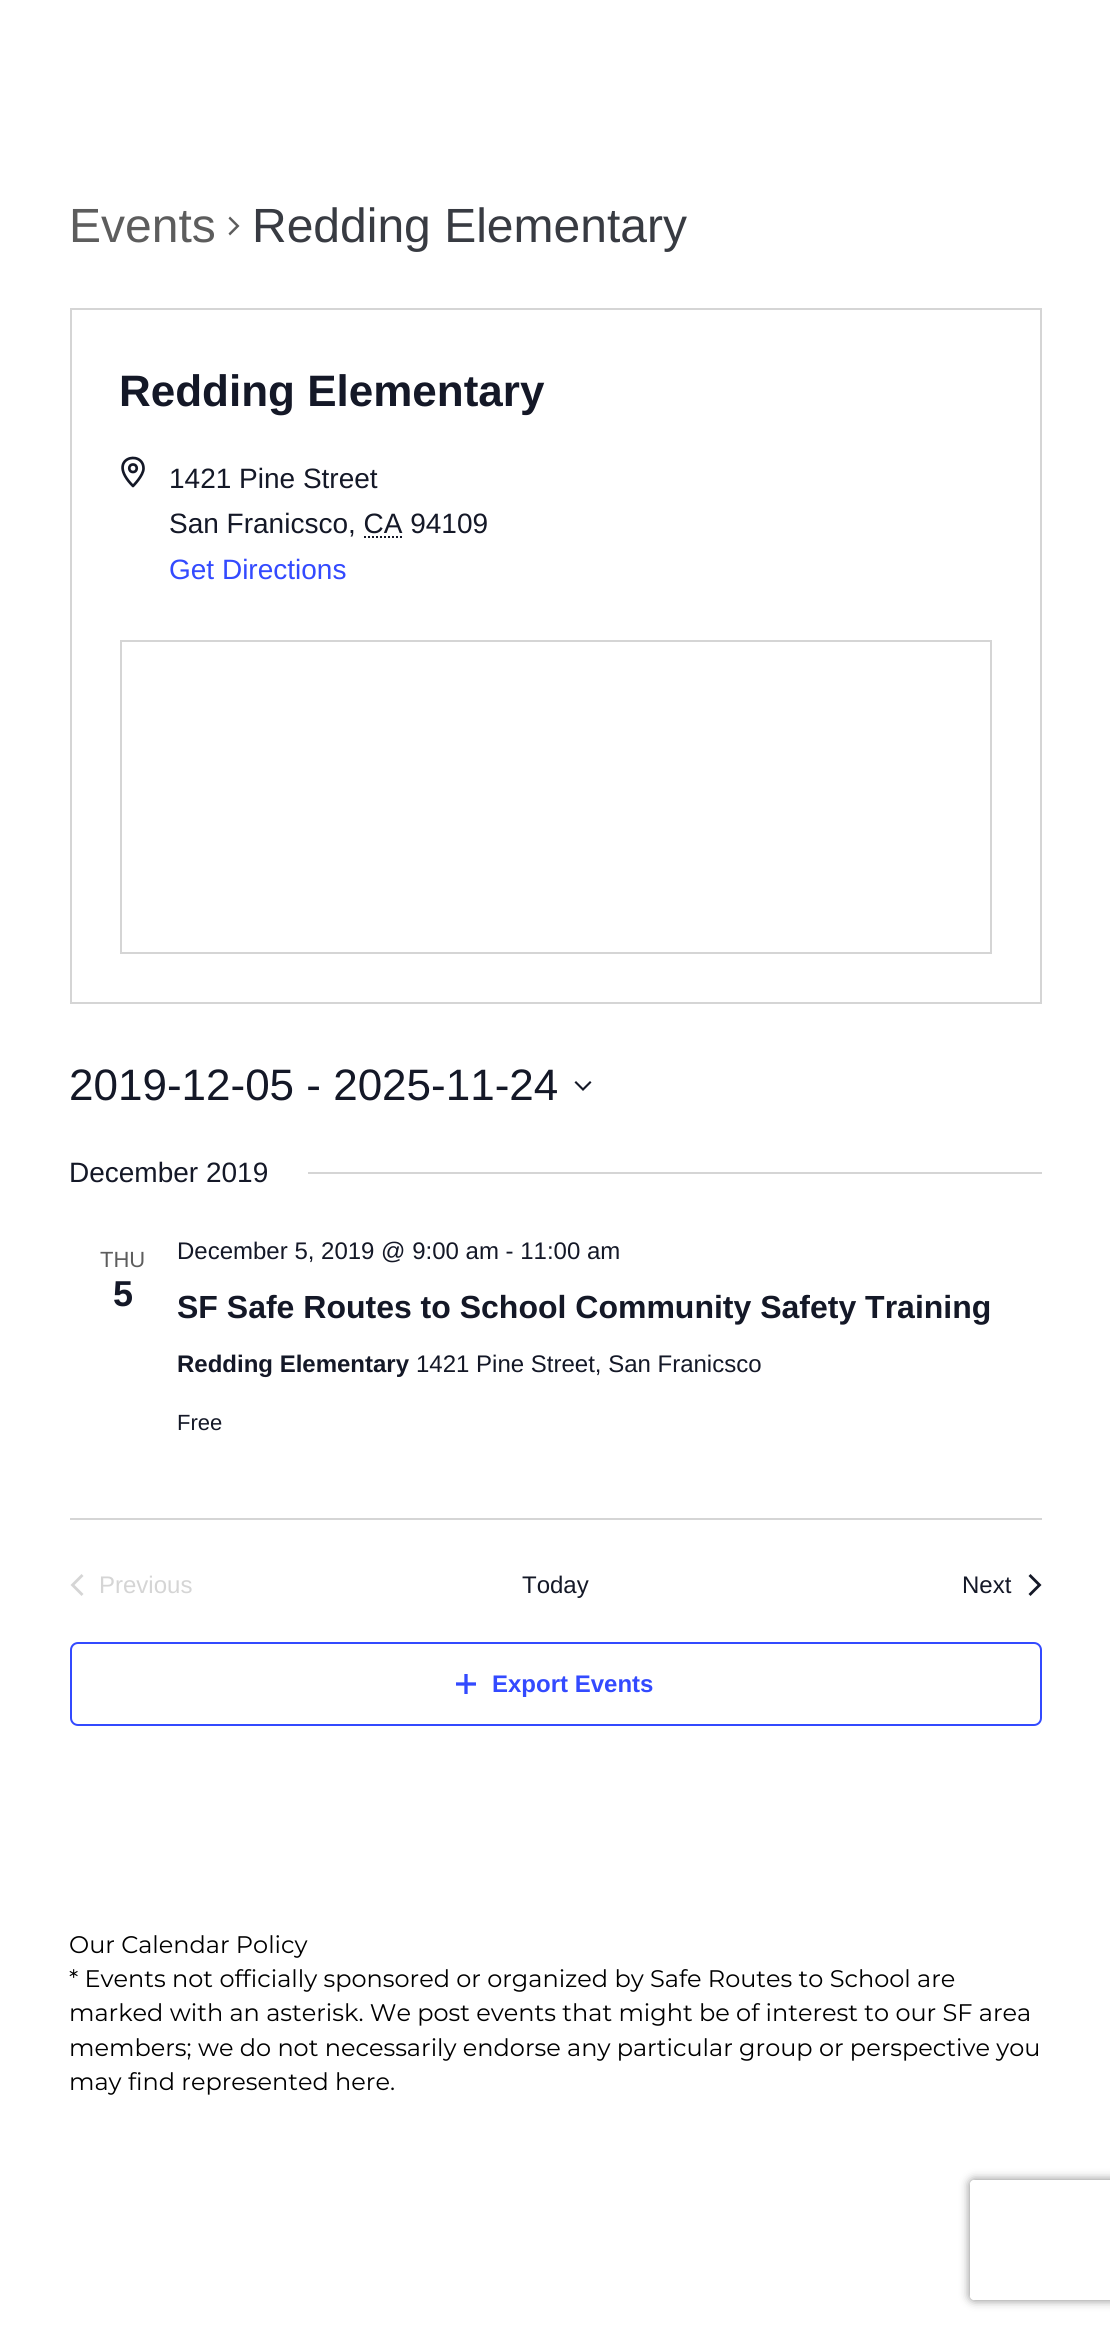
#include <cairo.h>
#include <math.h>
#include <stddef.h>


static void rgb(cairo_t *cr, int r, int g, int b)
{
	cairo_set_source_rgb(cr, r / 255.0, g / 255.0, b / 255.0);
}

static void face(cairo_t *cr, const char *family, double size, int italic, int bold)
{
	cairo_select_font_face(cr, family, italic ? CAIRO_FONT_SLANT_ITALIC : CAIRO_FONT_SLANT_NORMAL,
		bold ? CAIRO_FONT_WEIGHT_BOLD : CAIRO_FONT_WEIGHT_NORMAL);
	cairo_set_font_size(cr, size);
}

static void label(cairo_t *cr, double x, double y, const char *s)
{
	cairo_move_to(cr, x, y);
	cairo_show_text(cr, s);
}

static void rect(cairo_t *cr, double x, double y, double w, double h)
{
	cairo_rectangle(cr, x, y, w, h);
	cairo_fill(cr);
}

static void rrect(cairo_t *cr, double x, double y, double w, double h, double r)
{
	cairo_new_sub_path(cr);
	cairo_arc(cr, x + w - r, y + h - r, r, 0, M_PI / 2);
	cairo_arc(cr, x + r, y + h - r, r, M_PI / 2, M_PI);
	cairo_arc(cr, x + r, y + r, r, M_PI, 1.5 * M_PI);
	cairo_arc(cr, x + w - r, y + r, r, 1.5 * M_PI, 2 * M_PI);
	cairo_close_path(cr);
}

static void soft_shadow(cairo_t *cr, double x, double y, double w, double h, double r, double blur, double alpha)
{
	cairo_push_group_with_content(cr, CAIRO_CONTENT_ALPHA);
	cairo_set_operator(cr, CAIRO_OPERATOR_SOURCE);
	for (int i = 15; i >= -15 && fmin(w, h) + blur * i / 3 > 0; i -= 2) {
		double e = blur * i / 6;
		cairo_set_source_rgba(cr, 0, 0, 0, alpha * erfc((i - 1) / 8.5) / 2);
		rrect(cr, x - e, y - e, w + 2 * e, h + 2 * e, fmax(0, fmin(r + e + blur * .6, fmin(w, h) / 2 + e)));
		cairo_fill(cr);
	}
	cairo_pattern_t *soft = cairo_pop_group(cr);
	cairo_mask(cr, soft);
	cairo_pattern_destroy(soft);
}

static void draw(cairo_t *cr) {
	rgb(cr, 255, 255, 255);
	cairo_paint(cr);
	face(cr, "Liberation Sans", 48, 0, 0);
	rgb(cr, 93, 93, 93);
	label(cr, 69, 242, "Events");
	cairo_new_path(cr);
	cairo_move_to(cr, 228.5, 218.5);
	cairo_line_to(cr, 230, 216.5);
	cairo_line_to(cr, 239.5, 226);
	cairo_line_to(cr, 230, 235.5);
	cairo_line_to(cr, 228.5, 233.5);
	cairo_line_to(cr, 236, 226);
	cairo_close_path(cr);
	cairo_fill(cr);
	rgb(cr, 56, 59, 66);
	label(cr, 252, 242, "Redding Elementary");
	cairo_rectangle(cr, 71, 309, 970, 694);
	rgb(cr, 213, 213, 213);
	cairo_stroke(cr);
	face(cr, "Liberation Sans", 44, 0, 1);
	rgb(cr, 20, 24, 39);
	label(cr, 119, 406, "Redding Elementary");
	cairo_new_path(cr);
	cairo_move_to(cr, 143.5, 468.5);
	cairo_curve_to(cr, 143.5, 475.5, 133, 486, 133, 486);
	cairo_curve_to(cr, 104.5, 457.5, 143.5, 449, 143.5, 468.5);
	cairo_close_path(cr);
	cairo_move_to(cr, 133, 472);
	cairo_curve_to(cr, 138, 472, 138, 464.5, 133, 464.5);
	cairo_curve_to(cr, 128, 464.5, 128, 472, 133, 472);
	cairo_close_path(cr);
	cairo_set_line_width(cr, 2.7);
	cairo_set_line_cap(cr, CAIRO_LINE_CAP_ROUND);
	cairo_set_line_join(cr, CAIRO_LINE_JOIN_ROUND);
	cairo_stroke(cr);
	face(cr, "Liberation Sans", 28, 0, 0);
	label(cr, 169, 488, "1421 Pine Street");
	label(cr, 169, 533, "San Franicsco, CA 94109");
	cairo_new_path(cr);
	cairo_move_to(cr, 364, 537);
	cairo_line_to(cr, 403, 537);
	cairo_set_line_width(cr, 2);
	cairo_set_line_cap(cr, CAIRO_LINE_CAP_BUTT);
	cairo_set_line_join(cr, CAIRO_LINE_JOIN_MITER);
	cairo_set_dash(cr, (double[]){2, 2}, 2, 0);
	cairo_stroke(cr);
	rgb(cr, 51, 74, 255);
	label(cr, 169, 579, "Get Directions");
	cairo_rectangle(cr, 121, 641, 870, 312);
	rgb(cr, 213, 213, 213);
	cairo_set_dash(cr, NULL, 0, 0);
	cairo_stroke(cr);
	face(cr, "Liberation Sans", 44, 0, 0);
	rgb(cr, 20, 24, 39);
	label(cr, 69, 1100, "2019-12-05 - 2025-11-24");
	cairo_set_fill_rule(cr, CAIRO_FILL_RULE_EVEN_ODD);
	cairo_new_path(cr);
	cairo_move_to(cr, 576, 1081);
	cairo_line_to(cr, 583, 1088);
	cairo_line_to(cr, 590, 1081);
	cairo_line_to(cr, 591.5, 1082.5);
	cairo_line_to(cr, 583, 1091);
	cairo_line_to(cr, 574.5, 1082.5);
	cairo_close_path(cr);
	cairo_fill(cr);
	face(cr, "Liberation Sans", 28, 0, 0);
	label(cr, 69, 1182, "December 2019");
	rgb(cr, 213, 213, 213);
	rect(cr, 308, 1172, 734, 2);
	face(cr, "Liberation Sans", 22, 0, 0);
	rgb(cr, 93, 93, 93);
	label(cr, 100, 1267, "THU");
	face(cr, "Liberation Sans", 36, 0, 1);
	rgb(cr, 20, 24, 39);
	label(cr, 113, 1306, "5");
	face(cr, "Liberation Sans", 24, 0, 0);
	label(cr, 177, 1259, "December 5, 2019 @ 9:00 am - 11:00 am");
	face(cr, "Liberation Sans", 32, 0, 1);
	label(cr, 177, 1318, "SF Safe Routes to School Community Safety Training");
	face(cr, "Liberation Sans", 24, 0, 1);
	label(cr, 177, 1372, "Redding Elementary");
	face(cr, "Liberation Sans", 24, 0, 0);
	label(cr, 416, 1372, "1421 Pine Street, San Franicsco");
	face(cr, "Liberation Sans", 22, 0, 0);
	label(cr, 177, 1430, "Free");
	rgb(cr, 213, 213, 213);
	rect(cr, 70, 1518, 972, 2);
	cairo_set_fill_rule(cr, CAIRO_FILL_RULE_WINDING);
	cairo_new_path(cr);
	cairo_move_to(cr, 83.5, 1594);
	cairo_line_to(cr, 81.5, 1596);
	cairo_line_to(cr, 70.5, 1585);
	cairo_line_to(cr, 81.5, 1574);
	cairo_line_to(cr, 83.5, 1576);
	cairo_line_to(cr, 74.5, 1585);
	cairo_close_path(cr);
	cairo_fill(cr);
	face(cr, "Liberation Sans", 24, 0, 0);
	label(cr, 99, 1593, "Previous");
	rgb(cr, 20, 24, 39);
	label(cr, 522, 1593, "Today");
	label(cr, 962, 1593, "Next");
	cairo_new_path(cr);
	cairo_move_to(cr, 1028.5, 1576);
	cairo_line_to(cr, 1030.5, 1574);
	cairo_line_to(cr, 1041.5, 1585);
	cairo_line_to(cr, 1030.5, 1596);
	cairo_line_to(cr, 1028.5, 1594);
	cairo_line_to(cr, 1037.5, 1585);
	cairo_close_path(cr);
	cairo_fill(cr);
	rrect(cr, 71, 1643, 970, 82, 7);
	rgb(cr, 51, 74, 255);
	cairo_stroke(cr);
	cairo_save(cr);
	cairo_rectangle(cr, 456, 1674, 20, 20);
	cairo_clip(cr);
	cairo_new_path(cr);
	cairo_move_to(cr, 474.5, 1684);
	cairo_line_to(cr, 457.5, 1684);
	cairo_move_to(cr, 466, 1675.5);
	cairo_line_to(cr, 466, 1692.5);
	cairo_set_line_width(cr, 3.3);
	cairo_set_line_cap(cr, CAIRO_LINE_CAP_SQUARE);
	cairo_stroke(cr);
	cairo_restore(cr);
	face(cr, "Liberation Sans", 24, 0, 1);
	label(cr, 492, 1692, "Export Events");
	face(cr, "Montserrat", 24, 0, 0);
	rgb(cr, 0, 0, 0);
	label(cr, 69, 1953, "Our Calendar Policy");
	label(cr, 69, 1987, "* Events not officially sponsored or organized by Safe Routes to School are");
	label(cr, 69, 2021, "marked with an asterisk. We post events that might be of interest to our SF area");
	label(cr, 69, 2056, "members; we do not necessarily endorse any particular group or perspective you");
	label(cr, 69, 2090, "may find represented here.");
	cairo_save(cr);
	cairo_set_fill_rule(cr, CAIRO_FILL_RULE_EVEN_ODD);
	cairo_new_path(cr);
	cairo_move_to(cr, 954, 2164);
	cairo_line_to(cr, 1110, 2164);
	cairo_line_to(cr, 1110, 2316);
	cairo_line_to(cr, 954, 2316);
	cairo_close_path(cr);
	cairo_move_to(cr, 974, 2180);
	cairo_line_to(cr, 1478, 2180);
	cairo_curve_to(cr, 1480, 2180, 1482, 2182, 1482, 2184);
	cairo_line_to(cr, 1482, 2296);
	cairo_curve_to(cr, 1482, 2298, 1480, 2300, 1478, 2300);
	cairo_line_to(cr, 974, 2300);
	cairo_curve_to(cr, 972, 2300, 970, 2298, 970, 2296);
	cairo_line_to(cr, 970, 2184);
	cairo_curve_to(cr, 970, 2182, 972, 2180, 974, 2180);
	cairo_close_path(cr);
	cairo_clip(cr);
	rgb(cr, 128, 128, 128);
	soft_shadow(cr, 970, 2180, 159, 120, 4, 5, 1);
	cairo_restore(cr);
}

int main(void) {
	cairo_surface_t *surface = cairo_image_surface_create(CAIRO_FORMAT_RGB24, 1110, 2328);
	cairo_t *cr = cairo_create(surface);
	cairo_font_options_t *options = cairo_font_options_create();
	cairo_font_options_set_hint_metrics(options, CAIRO_HINT_METRICS_OFF);
	cairo_font_options_set_hint_style(options, CAIRO_HINT_STYLE_NONE);
	cairo_set_font_options(cr, options);
	cairo_set_miter_limit(cr, 4);
	draw(cr);
	cairo_surface_write_to_png(surface, "render.png");
	cairo_font_options_destroy(options);
	cairo_destroy(cr);
	cairo_surface_destroy(surface);
	return 0;
}
